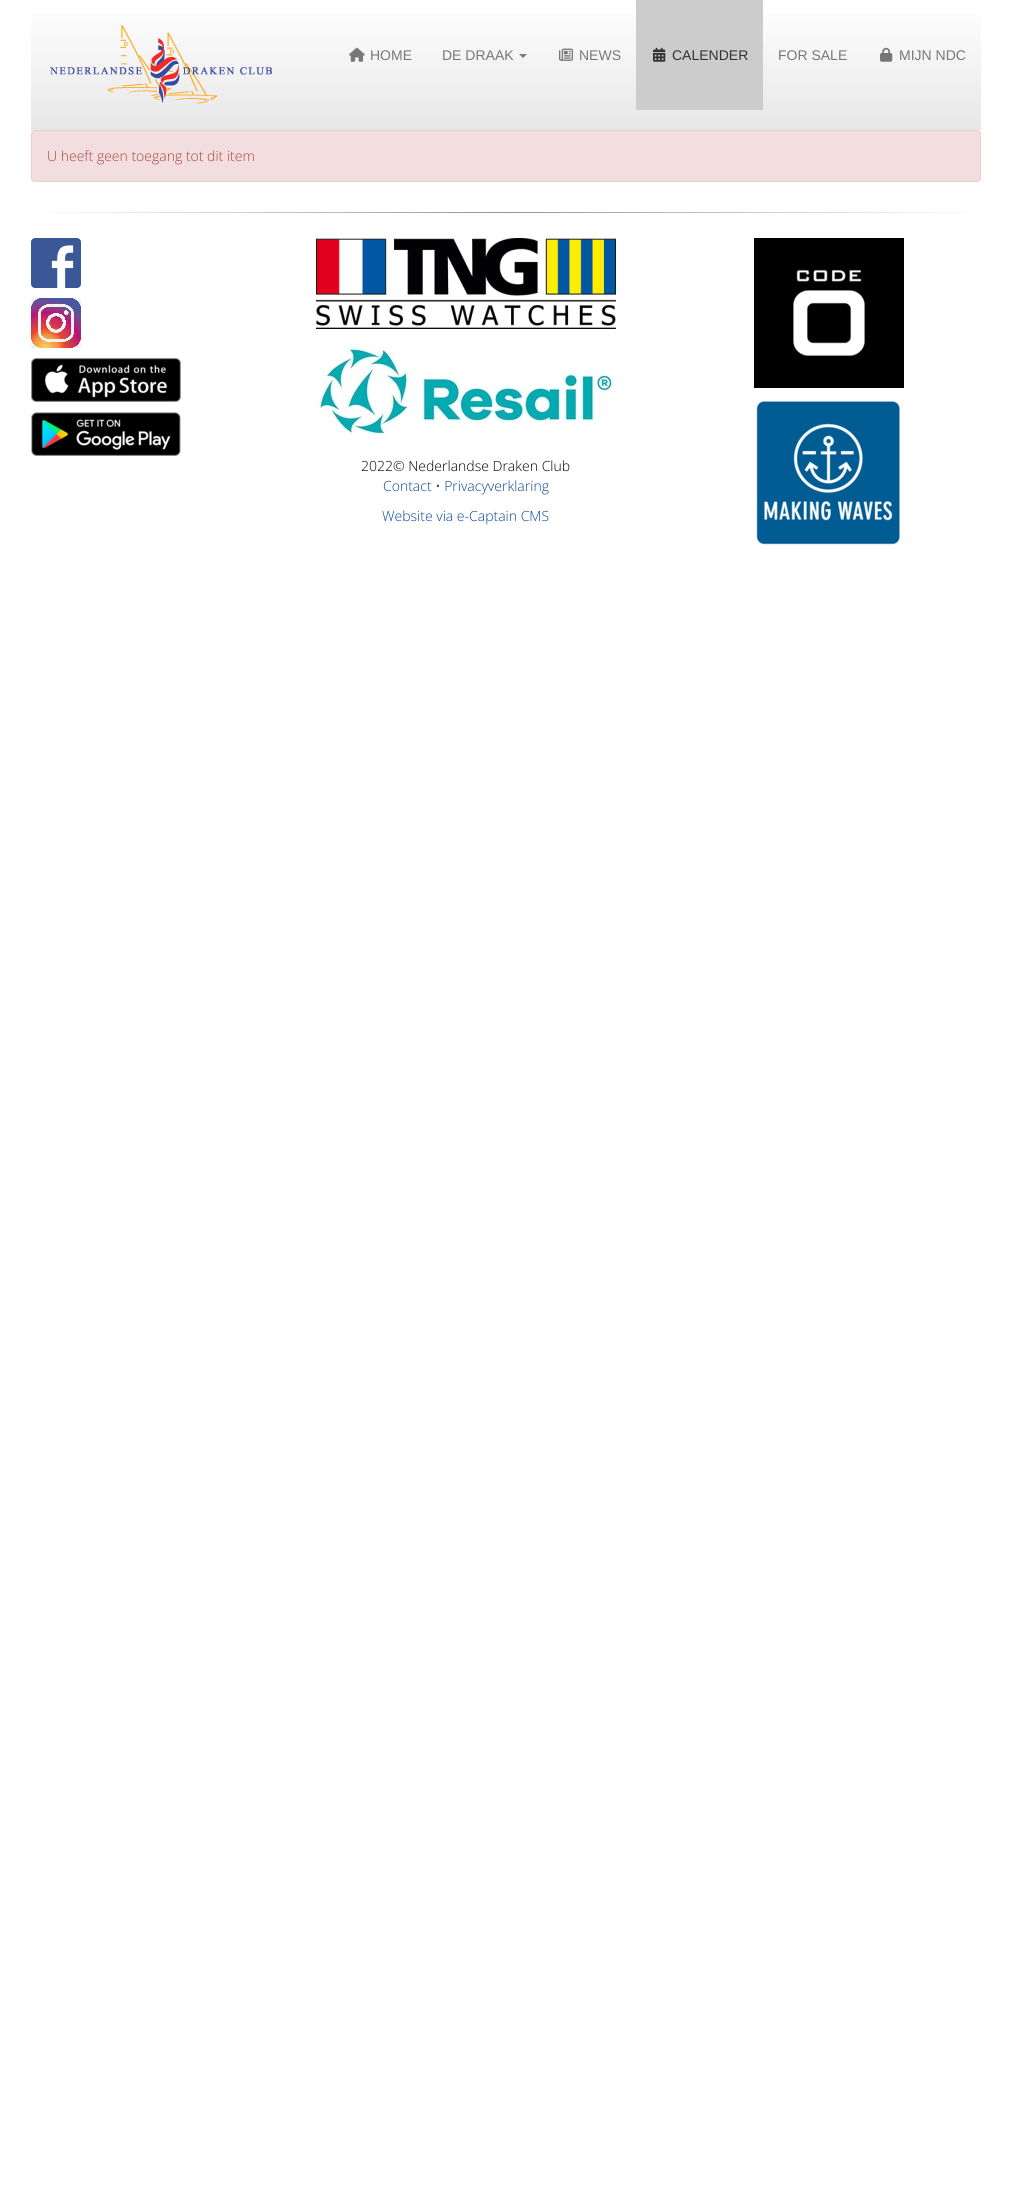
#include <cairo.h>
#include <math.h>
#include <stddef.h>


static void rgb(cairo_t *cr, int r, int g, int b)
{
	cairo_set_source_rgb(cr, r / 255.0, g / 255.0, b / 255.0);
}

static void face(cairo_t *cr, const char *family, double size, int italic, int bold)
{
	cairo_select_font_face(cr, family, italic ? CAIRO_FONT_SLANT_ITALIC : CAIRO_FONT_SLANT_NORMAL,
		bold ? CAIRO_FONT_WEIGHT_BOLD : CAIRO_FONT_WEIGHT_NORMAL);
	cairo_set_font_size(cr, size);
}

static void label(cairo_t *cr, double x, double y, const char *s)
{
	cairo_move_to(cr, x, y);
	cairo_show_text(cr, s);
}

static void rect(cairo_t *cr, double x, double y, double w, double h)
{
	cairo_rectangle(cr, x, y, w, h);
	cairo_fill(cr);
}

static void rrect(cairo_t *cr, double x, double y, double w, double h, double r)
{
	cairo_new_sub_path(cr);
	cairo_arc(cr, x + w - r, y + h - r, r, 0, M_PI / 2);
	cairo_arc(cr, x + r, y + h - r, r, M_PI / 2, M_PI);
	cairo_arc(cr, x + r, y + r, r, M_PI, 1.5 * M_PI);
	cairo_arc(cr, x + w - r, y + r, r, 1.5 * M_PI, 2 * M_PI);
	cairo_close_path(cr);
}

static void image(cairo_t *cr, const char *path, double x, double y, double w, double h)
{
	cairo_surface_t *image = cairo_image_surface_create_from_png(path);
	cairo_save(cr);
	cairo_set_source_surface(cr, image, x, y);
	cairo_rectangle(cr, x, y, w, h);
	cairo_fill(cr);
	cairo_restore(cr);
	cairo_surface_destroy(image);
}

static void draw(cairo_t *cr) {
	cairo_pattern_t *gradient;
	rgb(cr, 255, 255, 255);
	cairo_paint(cr);
	gradient = cairo_pattern_create_linear(506, 0, 506, 130);
	cairo_pattern_add_color_stop_rgba(gradient, 0, 1, 1, 1, 1);
	cairo_pattern_add_color_stop_rgba(gradient, 1, 0.906, 0.906, 0.906, 1);
	cairo_set_source(cr, gradient);
	cairo_pattern_destroy(gradient);
	rect(cr, 31, 14, 950, 116);
	image(cr, "image0.png", 50, 25, 222, 79);
	image(cr, "image1.png", 349, 47, 16, 15);
	face(cr, "Liberation Sans", 14, 0, 0);
	rgb(cr, 119, 119, 119);
	label(cr, 370, 60, "HOME");
	label(cr, 442, 60, "DE DRAAK");
	cairo_new_path(cr);
	cairo_move_to(cr, 519, 54);
	cairo_line_to(cr, 527, 54);
	cairo_line_to(cr, 523, 58);
	cairo_close_path(cr);
	cairo_fill(cr);
	image(cr, "image2.png", 559, 48, 14, 13);
	label(cr, 579, 60, "NEWS");
	rgb(cr, 204, 204, 204);
	rect(cr, 636, 0, 127, 110);
	image(cr, "image3.png", 653, 47, 13, 15);
	rgb(cr, 51, 51, 51);
	label(cr, 672, 60, "CALENDER");
	rgb(cr, 119, 119, 119);
	label(cr, 778, 60, "FOR SALE");
	image(cr, "image4.png", 880, 47, 13, 15);
	label(cr, 899, 60, "MIJN NDC");
	rgb(cr, 242, 222, 222);
	rrect(cr, 31.5, 130.5, 949, 51, 3.5);
	cairo_fill_preserve(cr);
	rgb(cr, 235, 204, 209);
	cairo_set_line_width(cr, 1);
	cairo_stroke(cr);
	face(cr, "Open Sans Light", 14, 0, 0);
	rgb(cr, 169, 68, 66);
	label(cr, 47, 161, "U heeft geen toegang tot dit item");
	gradient = cairo_pattern_create_linear(31, 213, 981, 212);
	cairo_pattern_add_color_stop_rgba(gradient, 0, 1, 1, 1, 1);
	cairo_pattern_add_color_stop_rgba(gradient, 0.5, 0.58, 0.58, 0.58, 1);
	cairo_pattern_add_color_stop_rgba(gradient, 1, 1, 1, 1, 1);
	cairo_set_source(cr, gradient);
	cairo_pattern_destroy(gradient);
	rect(cr, 42, 212, 928, 1);
	image(cr, "image5.png", 31, 238, 50, 50);
	image(cr, "image6.png", 31, 298, 50, 50);
	image(cr, "image7.png", 31, 358, 150, 44);
	image(cr, "image8.png", 31, 412, 150, 44);
	image(cr, "image9.png", 316, 238, 300, 91);
	image(cr, "image10.png", 316, 339, 300, 96);
	rgb(cr, 0, 0, 0);
	label(cr, 361, 471, "2022© Nederlandse Draken Club");
	rgb(cr, 9, 72, 153);
	label(cr, 383, 491, "Contact • Privacyverklaring");
	label(cr, 382, 521, "Website via e-Captain CMS");
	image(cr, "image11.png", 754, 238, 150, 150);
	image(cr, "image12.png", 756, 401, 144, 144);
}

int main(void) {
	cairo_surface_t *surface = cairo_image_surface_create(CAIRO_FORMAT_RGB24, 1012, 2197);
	cairo_t *cr = cairo_create(surface);
	cairo_font_options_t *options = cairo_font_options_create();
	cairo_font_options_set_hint_metrics(options, CAIRO_HINT_METRICS_OFF);
	cairo_font_options_set_hint_style(options, CAIRO_HINT_STYLE_NONE);
	cairo_set_font_options(cr, options);
	cairo_set_miter_limit(cr, 4);
	draw(cr);
	cairo_surface_write_to_png(surface, "render.png");
	cairo_font_options_destroy(options);
	cairo_destroy(cr);
	cairo_surface_destroy(surface);
	return 0;
}
